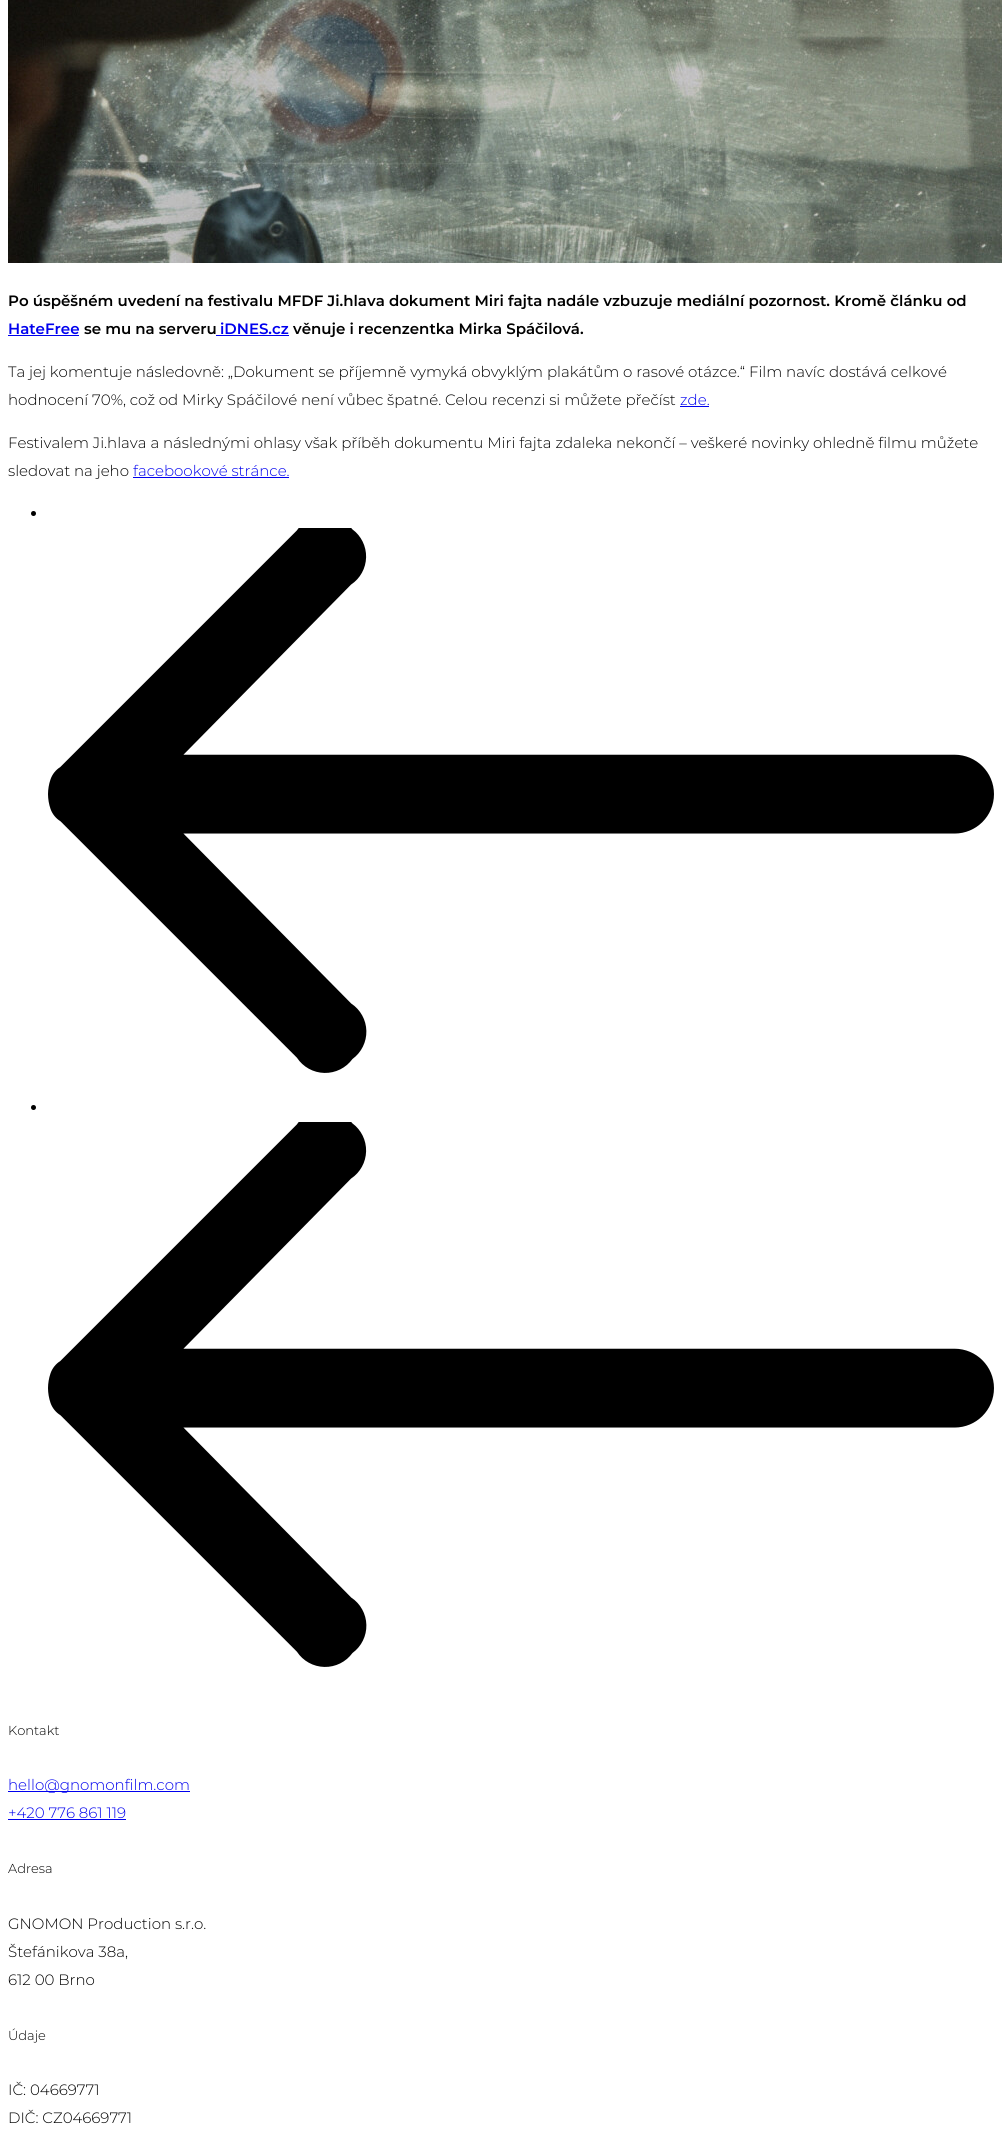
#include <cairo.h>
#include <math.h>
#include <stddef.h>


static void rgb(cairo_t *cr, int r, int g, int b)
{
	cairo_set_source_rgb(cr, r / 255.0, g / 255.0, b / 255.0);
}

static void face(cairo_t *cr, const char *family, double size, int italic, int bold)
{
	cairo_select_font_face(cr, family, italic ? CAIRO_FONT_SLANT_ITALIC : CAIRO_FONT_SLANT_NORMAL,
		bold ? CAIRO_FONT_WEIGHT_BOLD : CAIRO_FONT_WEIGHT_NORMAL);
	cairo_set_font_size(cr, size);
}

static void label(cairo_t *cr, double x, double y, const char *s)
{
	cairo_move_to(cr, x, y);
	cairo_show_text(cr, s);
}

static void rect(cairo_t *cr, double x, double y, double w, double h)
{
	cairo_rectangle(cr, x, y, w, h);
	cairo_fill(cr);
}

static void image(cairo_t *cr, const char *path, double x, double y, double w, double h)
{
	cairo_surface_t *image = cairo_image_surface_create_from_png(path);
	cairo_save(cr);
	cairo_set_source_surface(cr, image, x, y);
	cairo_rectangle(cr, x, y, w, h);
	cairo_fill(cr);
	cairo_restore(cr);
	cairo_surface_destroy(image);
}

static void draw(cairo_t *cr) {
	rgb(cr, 255, 255, 255);
	cairo_paint(cr);
	image(cr, "image0.png", 8, 0, 994, 263);
	face(cr, "Montserrat SemiBold", 15, 0, 0);
	rgb(cr, 0, 0, 0);
	label(cr, 8, 306, "Po úspěšném uvedení na festivalu MFDF Ji.hlava dokument Miri fajta nadále vzbuzuje mediální pozornost. Kromě článku od");
	rgb(cr, 0, 0, 238);
	label(cr, 8, 334, "HateFree");
	rect(cr, 8, 335, 71, 1);
	rgb(cr, 0, 0, 0);
	label(cr, 84, 334, "se mu na serveru");
	rgb(cr, 0, 0, 238);
	rect(cr, 216, 335, 73, 1);
	label(cr, 220, 334, "iDNES.cz");
	rgb(cr, 0, 0, 0);
	label(cr, 293, 334, "věnuje i recenzentka Mirka Spáčilová.");
	face(cr, "Montserrat Light", 15, 0, 0);
	label(cr, 8, 377, "Ta jej komentuje následovně: „Dokument se příjemně vymyká obvyklým plakátům o rasové otázce.“ Film navíc dostává celkové");
	label(cr, 8, 405, "hodnocení 70%, což od Mirky Spáčilové není vůbec špatné. Celou recenzi si můžete přečíst");
	rgb(cr, 0, 0, 238);
	label(cr, 680, 405, "zde.");
	rect(cr, 680, 406, 29, 1);
	rgb(cr, 0, 0, 0);
	label(cr, 8, 448, "Festivalem Ji.hlava a následnými ohlasy však příběh dokumentu Miri fajta zdaleka nekončí – veškeré novinky ohledně filmu můžete");
	label(cr, 8, 476, "sledovat na jeho");
	rgb(cr, 0, 0, 238);
	label(cr, 133, 476, "facebookové stránce.");
	rect(cr, 133, 477, 156, 1);
	rgb(cr, 0, 0, 0);
	cairo_new_path(cr);
	cairo_arc(cr, 33.5, 513.5, 2.5, 0, 2 * M_PI);
	cairo_fill(cr);
	image(cr, "image1.png", 48, 528, 946, 545);
	cairo_arc(cr, 33.5, 1107.5, 2.5, 0, 2 * M_PI);
	cairo_fill(cr);
	image(cr, "image1.png", 48, 1122, 946, 545);
	face(cr, "Montserrat Light", 13, 0, 0);
	label(cr, 8, 1735, "Kontakt");
	rgb(cr, 0, 0, 238);
	rect(cr, 8, 1791, 182, 1);
	face(cr, "Montserrat Light", 15, 0, 0);
	label(cr, 8, 1790, "hello@gnomonfilm.com");
	label(cr, 8, 1818, "+420 776 861 119");
	rect(cr, 8, 1819, 118, 1);
	face(cr, "Montserrat Light", 13, 0, 0);
	rgb(cr, 0, 0, 0);
	label(cr, 8, 1873, "Adresa");
	face(cr, "Montserrat Light", 15, 0, 0);
	label(cr, 8, 1929, "GNOMON Production s.r.o.");
	label(cr, 8, 1957, "Štefánikova 38a,");
	label(cr, 8, 1985, "612 00 Brno");
	face(cr, "Montserrat Light", 13, 0, 0);
	label(cr, 8, 2040, "Údaje");
	face(cr, "Montserrat Light", 15, 0, 0);
	label(cr, 8, 2095, "IČ: 04669771");
	label(cr, 8, 2123, "DIČ: CZ04669771");
}

int main(void) {
	cairo_surface_t *surface = cairo_image_surface_create(CAIRO_FORMAT_RGB24, 1002, 2147);
	cairo_t *cr = cairo_create(surface);
	cairo_font_options_t *options = cairo_font_options_create();
	cairo_font_options_set_hint_metrics(options, CAIRO_HINT_METRICS_OFF);
	cairo_font_options_set_hint_style(options, CAIRO_HINT_STYLE_NONE);
	cairo_set_font_options(cr, options);
	cairo_set_miter_limit(cr, 4);
	draw(cr);
	cairo_surface_write_to_png(surface, "render.png");
	cairo_font_options_destroy(options);
	cairo_destroy(cr);
	cairo_surface_destroy(surface);
	return 0;
}
